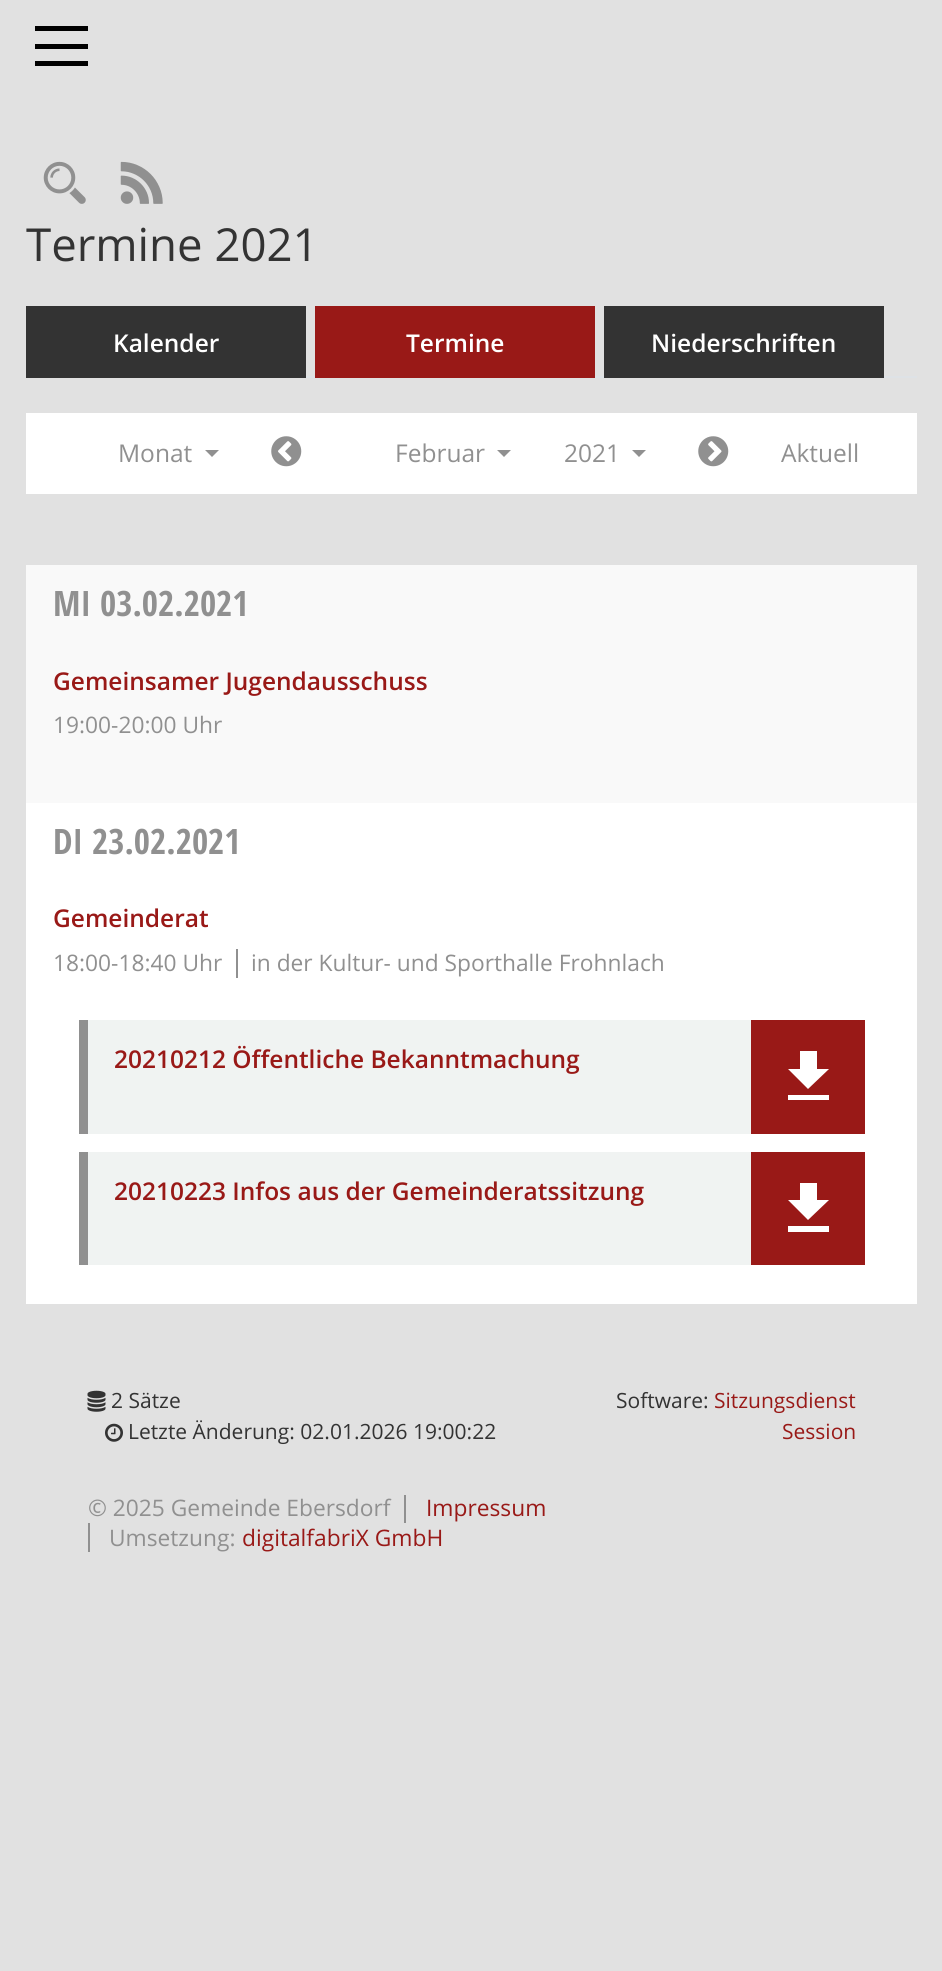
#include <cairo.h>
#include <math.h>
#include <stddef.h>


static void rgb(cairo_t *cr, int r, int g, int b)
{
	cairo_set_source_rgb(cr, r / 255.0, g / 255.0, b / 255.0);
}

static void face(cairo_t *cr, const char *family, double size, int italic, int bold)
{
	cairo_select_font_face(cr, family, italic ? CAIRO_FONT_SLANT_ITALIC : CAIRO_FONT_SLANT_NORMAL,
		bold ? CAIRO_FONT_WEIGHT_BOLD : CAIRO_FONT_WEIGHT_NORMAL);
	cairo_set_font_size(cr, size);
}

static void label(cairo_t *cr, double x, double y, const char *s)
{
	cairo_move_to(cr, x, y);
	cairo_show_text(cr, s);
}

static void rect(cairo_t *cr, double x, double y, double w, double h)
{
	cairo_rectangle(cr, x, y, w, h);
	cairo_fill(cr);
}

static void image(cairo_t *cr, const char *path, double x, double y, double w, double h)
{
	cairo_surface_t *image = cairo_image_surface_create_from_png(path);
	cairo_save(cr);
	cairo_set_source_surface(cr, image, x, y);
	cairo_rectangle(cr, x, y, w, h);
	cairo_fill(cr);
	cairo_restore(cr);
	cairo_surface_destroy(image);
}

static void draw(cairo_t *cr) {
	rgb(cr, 225, 225, 225);
	cairo_paint(cr);
	rgb(cr, 0, 0, 0);
	rect(cr, 35, 26, 53, 5);
	rect(cr, 35, 44, 53, 5);
	rect(cr, 35, 61, 53, 5);
	image(cr, "image0.png", 43, 161, 43, 43);
	image(cr, "image1.png", 120, 161, 43, 43);
	face(cr, "Open Sans", 45.5, 0, 0);
	rgb(cr, 51, 51, 51);
	label(cr, 26, 261, "Termine 2021");
	rgb(cr, 222, 226, 230);
	rect(cr, 306, 376, 611, 2);
	rgb(cr, 51, 51, 51);
	rect(cr, 26, 306, 280, 72);
	face(cr, "Open Sans SemiBold", 24.5, 0, 0);
	rgb(cr, 255, 255, 255);
	label(cr, 113, 352, "Kalender");
	rgb(cr, 153, 25, 23);
	rect(cr, 315, 306, 280, 72);
	rgb(cr, 255, 255, 255);
	label(cr, 406, 352, "Termine");
	rgb(cr, 51, 51, 51);
	rect(cr, 604, 306, 280, 72);
	rgb(cr, 255, 255, 255);
	label(cr, 651, 352, "Niederschriften");
	rect(cr, 26, 413, 891, 81);
	face(cr, "Open Sans", 24.5, 0, 0);
	rgb(cr, 144, 144, 144);
	label(cr, 118, 462, "Monat");
	cairo_new_path(cr);
	cairo_move_to(cr, 205, 450);
	cairo_line_to(cr, 219, 450);
	cairo_line_to(cr, 212, 457);
	cairo_close_path(cr);
	cairo_fill(cr);
	image(cr, "image2.png", 271, 436, 31, 31);
	label(cr, 395, 462, "Februar");
	cairo_new_path(cr);
	cairo_move_to(cr, 497, 450);
	cairo_line_to(cr, 511, 450);
	cairo_line_to(cr, 504, 457);
	cairo_close_path(cr);
	cairo_fill(cr);
	label(cr, 564, 462, "2021");
	cairo_new_path(cr);
	cairo_move_to(cr, 632, 450);
	cairo_line_to(cr, 646, 450);
	cairo_line_to(cr, 639, 457);
	cairo_close_path(cr);
	cairo_fill(cr);
	image(cr, "image3.png", 698, 436, 31, 31);
	label(cr, 781, 462, "Aktuell");
	rgb(cr, 255, 255, 255);
	rect(cr, 26, 803, 891, 501);
	rgb(cr, 249, 249, 249);
	rect(cr, 26, 565, 891, 238);
	face(cr, "Open Sans Condensed", 35, 0, 1);
	rgb(cr, 144, 144, 144);
	label(cr, 53, 616, "MI");
	label(cr, 100, 616, "03.02.2021");
	face(cr, "Open Sans SemiBold", 24.5, 0, 0);
	rgb(cr, 153, 25, 23);
	label(cr, 53, 690, "Gemeinsamer Jugendausschuss");
	face(cr, "Open Sans", 22.75, 0, 0);
	rgb(cr, 144, 144, 144);
	label(cr, 53, 733, "19:00-20:00 Uhr");
	face(cr, "Open Sans Condensed", 35, 0, 1);
	label(cr, 53, 854, "DI");
	label(cr, 92, 854, "23.02.2021");
	face(cr, "Open Sans SemiBold", 24.5, 0, 0);
	rgb(cr, 153, 25, 23);
	label(cr, 53, 927, "Gemeinderat");
	face(cr, "Open Sans", 22.75, 0, 0);
	rgb(cr, 144, 144, 144);
	label(cr, 53, 971, "18:00-18:40 Uhr");
	rect(cr, 236, 949, 2, 29);
	label(cr, 251, 971, "in der Kultur- und Sporthalle Frohnlach");
	rgb(cr, 240, 243, 242);
	rect(cr, 88, 1020, 663, 114);
	rgb(cr, 144, 144, 144);
	rect(cr, 79, 1020, 9, 114);
	face(cr, "Open Sans SemiBold", 24.5, 0, 0);
	rgb(cr, 153, 25, 23);
	label(cr, 114, 1068, "20210212 Öffentliche Bekanntmachung");
	rect(cr, 751, 1020, 114, 114);
	rgb(cr, 255, 255, 255);
	cairo_new_path(cr);
	cairo_move_to(cr, 829, 1069);
	cairo_line_to(cr, 817, 1069);
	cairo_line_to(cr, 817, 1051);
	cairo_line_to(cr, 800, 1051);
	cairo_line_to(cr, 800, 1069);
	cairo_line_to(cr, 788, 1069);
	cairo_line_to(cr, 808, 1089);
	cairo_close_path(cr);
	cairo_move_to(cr, 788, 1095);
	cairo_line_to(cr, 788, 1100);
	cairo_line_to(cr, 829, 1100);
	cairo_line_to(cr, 829, 1095);
	cairo_close_path(cr);
	cairo_fill(cr);
	rgb(cr, 240, 243, 242);
	rect(cr, 88, 1152, 663, 113);
	rgb(cr, 144, 144, 144);
	rect(cr, 79, 1152, 9, 113);
	rgb(cr, 153, 25, 23);
	label(cr, 114, 1200, "20210223 Infos aus der Gemeinderatssitzung");
	rect(cr, 751, 1152, 114, 113);
	rgb(cr, 255, 255, 255);
	cairo_new_path(cr);
	cairo_move_to(cr, 829, 1200);
	cairo_line_to(cr, 817, 1200);
	cairo_line_to(cr, 817, 1183);
	cairo_line_to(cr, 800, 1183);
	cairo_line_to(cr, 800, 1200);
	cairo_line_to(cr, 788, 1200);
	cairo_line_to(cr, 808, 1220);
	cairo_close_path(cr);
	cairo_move_to(cr, 788, 1226);
	cairo_line_to(cr, 788, 1232);
	cairo_line_to(cr, 829, 1232);
	cairo_line_to(cr, 829, 1226);
	cairo_close_path(cr);
	cairo_fill(cr);
	image(cr, "image4.png", 87, 1390, 19, 22);
	face(cr, "Open Sans", 21, 0, 0);
	rgb(cr, 51, 51, 51);
	label(cr, 111, 1408, "2 Sätze");
	image(cr, "image5.png", 105, 1423, 18, 19);
	label(cr, 128, 1439, "Letzte Änderung: 02.01.2026 19:00:22");
	label(cr, 616, 1408, "Software:");
	rgb(cr, 153, 25, 23);
	label(cr, 714, 1408, "Sitzungsdienst");
	label(cr, 782, 1439, "Session");
	face(cr, "Open Sans", 22.75, 0, 0);
	rgb(cr, 144, 144, 144);
	label(cr, 88, 1516, "© 2025 Gemeinde Ebersdorf");
	rect(cr, 404, 1495, 2, 28);
	rgb(cr, 153, 25, 23);
	label(cr, 426, 1516, "Impressum");
	rgb(cr, 144, 144, 144);
	rect(cr, 88, 1523, 2, 29);
	label(cr, 109, 1546, "Umsetzung:");
	rgb(cr, 153, 25, 23);
	label(cr, 242, 1546, "digitalfabriX GmbH");
}

int main(void) {
	cairo_surface_t *surface = cairo_image_surface_create(CAIRO_FORMAT_RGB24, 942, 1971);
	cairo_t *cr = cairo_create(surface);
	cairo_font_options_t *options = cairo_font_options_create();
	cairo_font_options_set_hint_metrics(options, CAIRO_HINT_METRICS_OFF);
	cairo_font_options_set_hint_style(options, CAIRO_HINT_STYLE_NONE);
	cairo_set_font_options(cr, options);
	cairo_set_miter_limit(cr, 4);
	draw(cr);
	cairo_surface_write_to_png(surface, "render.png");
	cairo_font_options_destroy(options);
	cairo_destroy(cr);
	cairo_surface_destroy(surface);
	return 0;
}
